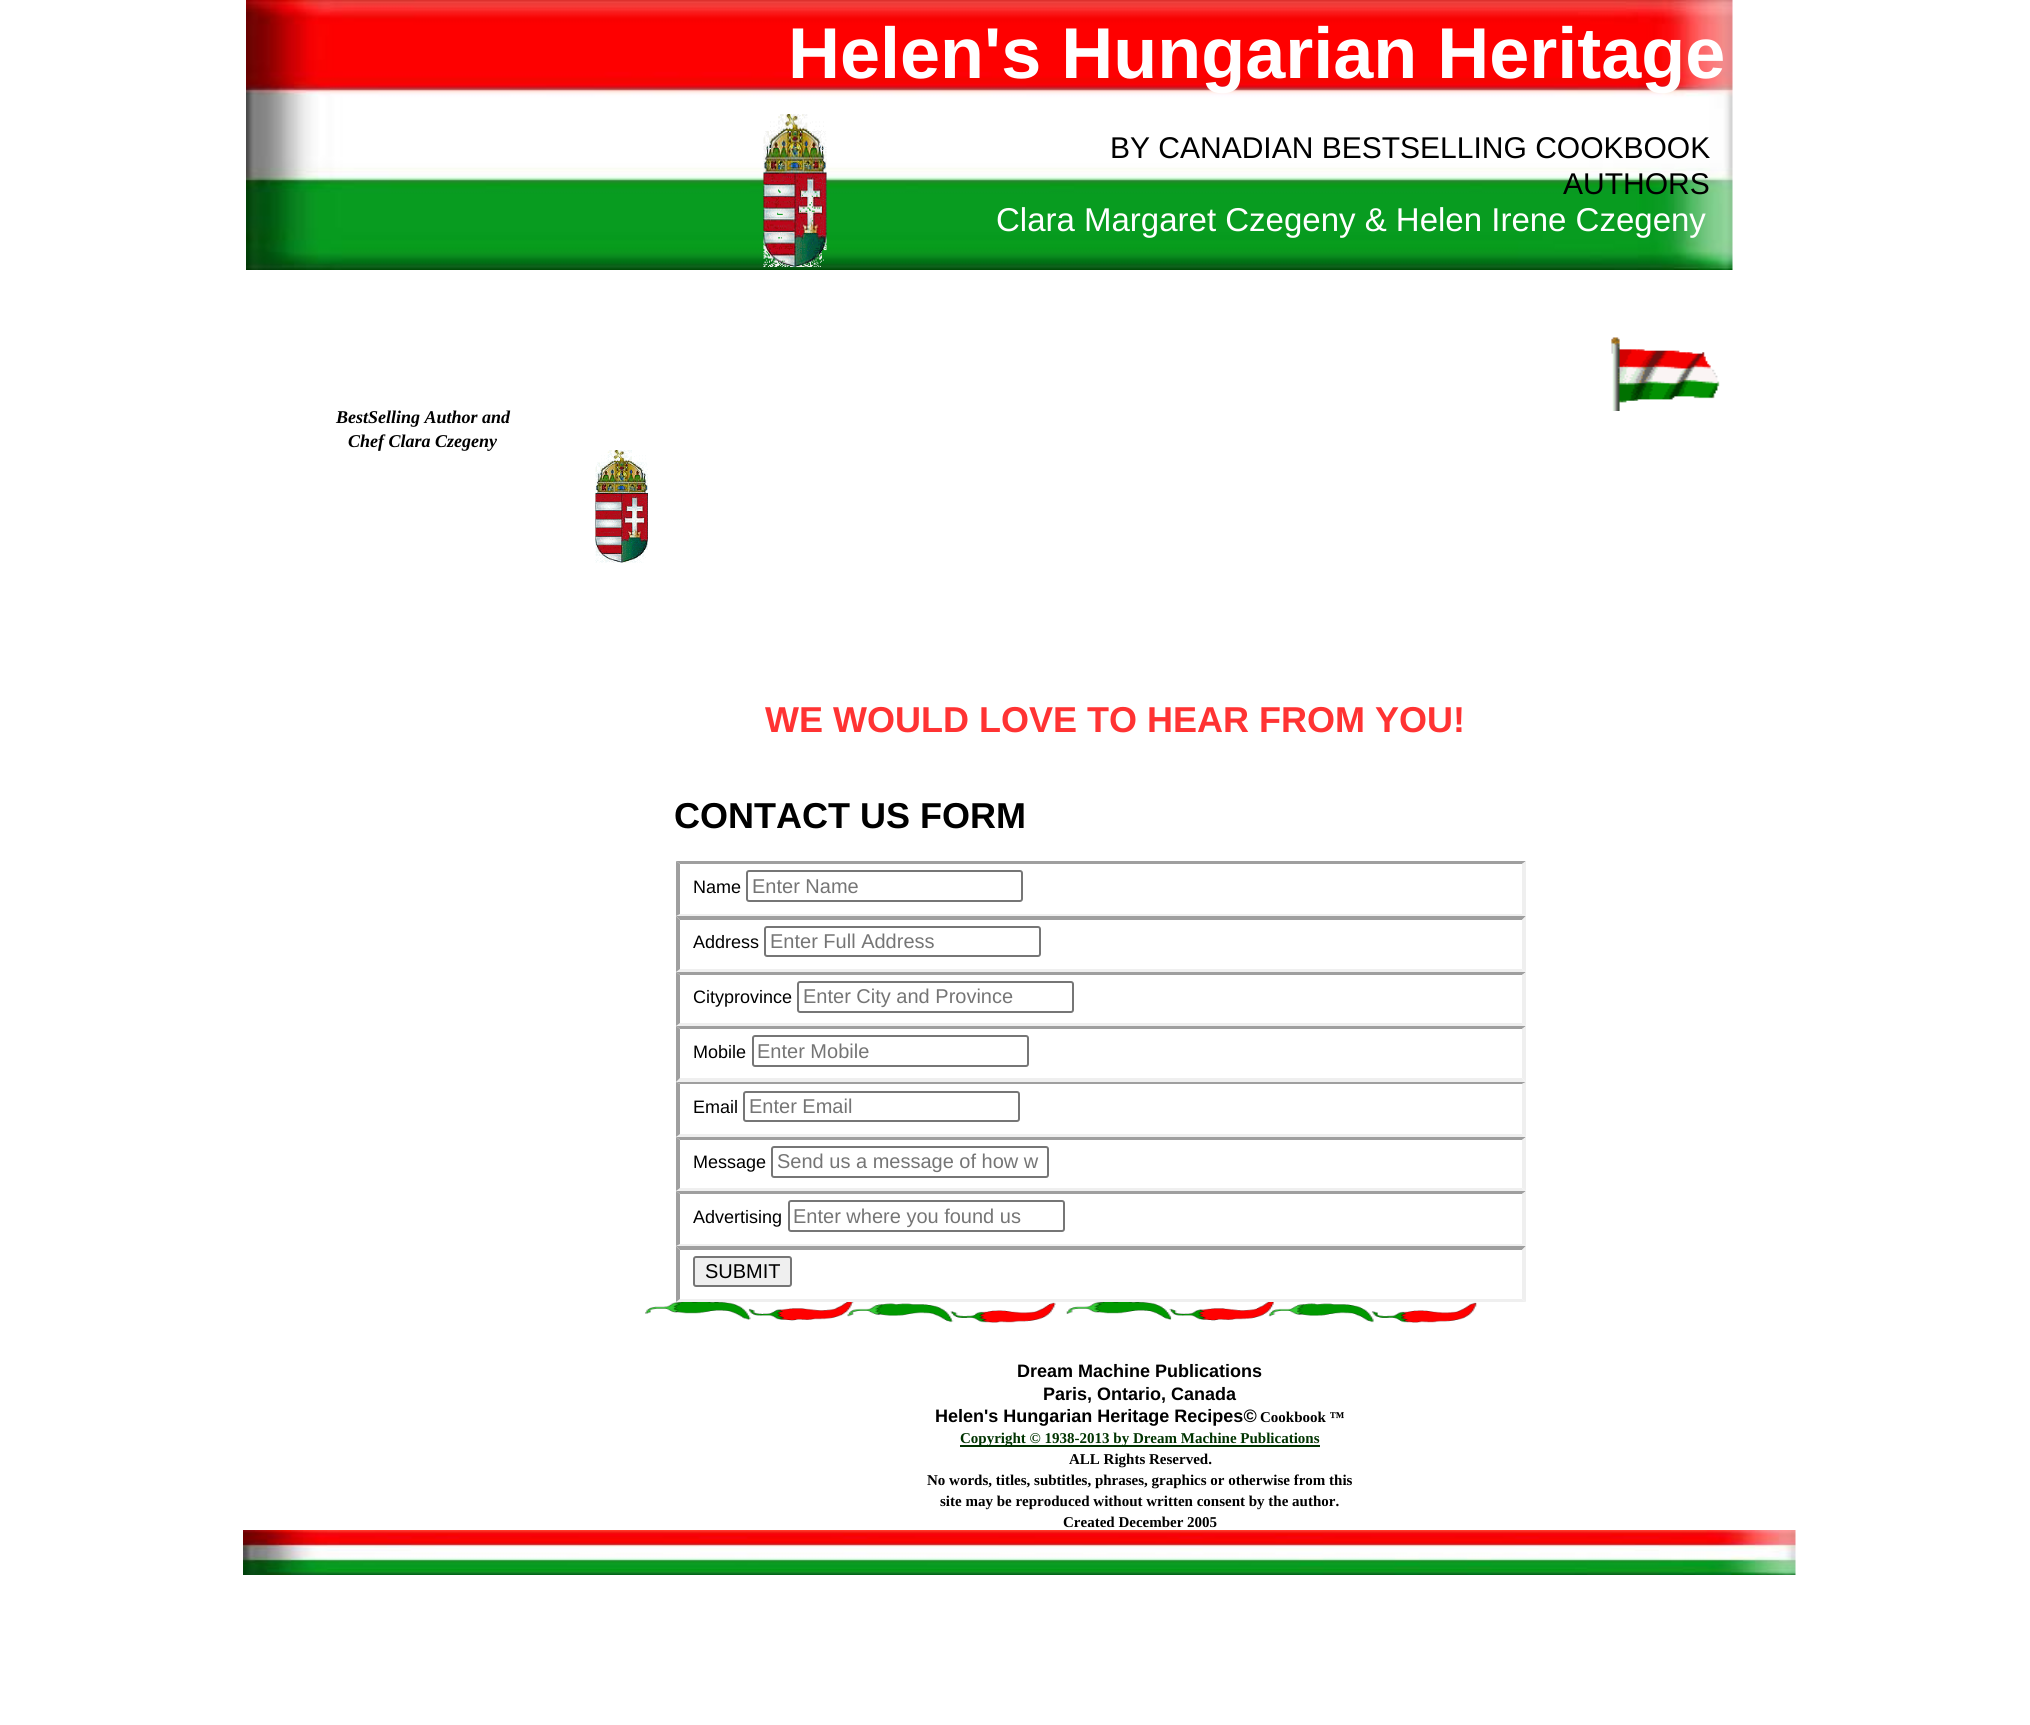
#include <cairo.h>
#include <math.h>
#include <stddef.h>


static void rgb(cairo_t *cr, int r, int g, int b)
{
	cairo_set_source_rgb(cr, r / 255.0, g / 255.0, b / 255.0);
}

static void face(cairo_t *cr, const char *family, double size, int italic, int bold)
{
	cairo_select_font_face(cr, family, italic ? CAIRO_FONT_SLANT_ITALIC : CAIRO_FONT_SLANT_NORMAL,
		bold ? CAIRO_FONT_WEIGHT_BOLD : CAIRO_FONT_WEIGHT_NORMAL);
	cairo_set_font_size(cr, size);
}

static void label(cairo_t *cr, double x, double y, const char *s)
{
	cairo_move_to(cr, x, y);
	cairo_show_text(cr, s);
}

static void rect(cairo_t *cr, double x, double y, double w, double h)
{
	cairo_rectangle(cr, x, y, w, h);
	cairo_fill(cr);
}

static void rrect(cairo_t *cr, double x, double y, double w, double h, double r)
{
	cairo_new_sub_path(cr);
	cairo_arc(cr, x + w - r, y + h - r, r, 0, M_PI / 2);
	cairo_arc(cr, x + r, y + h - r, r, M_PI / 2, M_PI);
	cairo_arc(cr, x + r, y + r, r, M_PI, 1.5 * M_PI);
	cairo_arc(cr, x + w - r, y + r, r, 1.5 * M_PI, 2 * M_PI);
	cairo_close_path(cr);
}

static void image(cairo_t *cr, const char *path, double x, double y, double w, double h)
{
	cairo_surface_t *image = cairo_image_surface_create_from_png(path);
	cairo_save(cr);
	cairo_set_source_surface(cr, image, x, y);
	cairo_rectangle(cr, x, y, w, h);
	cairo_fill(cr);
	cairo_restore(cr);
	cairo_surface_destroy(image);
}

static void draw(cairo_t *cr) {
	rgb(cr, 255, 255, 255);
	cairo_paint(cr);
	image(cr, "image0.png", 246, 0, 1487, 270);
	face(cr, "Liberation Sans", 72, 0, 1);
	rgb(cr, 255, 255, 255);
	label(cr, 788, 78, "Helen's Hungarian Heritage");
	image(cr, "image1.png", 763, 114, 64, 153);
	face(cr, "Liberation Sans", 30, 0, 0);
	rgb(cr, 0, 0, 0);
	label(cr, 1110, 158, "BY CANADIAN BESTSELLING COOKBOOK");
	label(cr, 1563, 194, "AUTHORS");
	face(cr, "Liberation Sans", 33, 0, 0);
	rgb(cr, 255, 255, 255);
	label(cr, 996, 231, "Clara Margaret Czegeny & Helen Irene Czegeny");
	image(cr, "image2.png", 1611, 337, 109, 74);
	face(cr, "Liberation Serif", 18, 1, 1);
	rgb(cr, 0, 0, 0);
	label(cr, 336, 423, "BestSelling Author and");
	label(cr, 348, 447, "Chef Clara Czegeny");
	image(cr, "image3.png", 595, 450, 53, 113);
	face(cr, "Liberation Sans", 36, 0, 1);
	rgb(cr, 255, 51, 51);
	label(cr, 765, 732, "WE WOULD LOVE TO HEAR FROM YOU!");
	rgb(cr, 0, 0, 0);
	label(cr, 674, 828, "CONTACT US FORM");
	rgb(cr, 159, 159, 159);
	cairo_new_path(cr);
	cairo_move_to(cr, 676, 861);
	cairo_line_to(cr, 1526, 861);
	cairo_line_to(cr, 1522, 864);
	cairo_line_to(cr, 680, 864);
	cairo_close_path(cr);
	cairo_fill(cr);
	rgb(cr, 239, 239, 239);
	cairo_new_path(cr);
	cairo_move_to(cr, 1526, 861);
	cairo_line_to(cr, 1526, 916);
	cairo_line_to(cr, 1522, 914);
	cairo_line_to(cr, 1522, 864);
	cairo_close_path(cr);
	cairo_fill(cr);
	cairo_new_path(cr);
	cairo_move_to(cr, 1526, 916);
	cairo_line_to(cr, 676, 916);
	cairo_line_to(cr, 680, 914);
	cairo_line_to(cr, 1522, 914);
	cairo_close_path(cr);
	cairo_fill(cr);
	rgb(cr, 159, 159, 159);
	cairo_new_path(cr);
	cairo_move_to(cr, 676, 916);
	cairo_line_to(cr, 676, 861);
	cairo_line_to(cr, 680, 864);
	cairo_line_to(cr, 680, 914);
	cairo_close_path(cr);
	cairo_fill(cr);
	face(cr, "Liberation Sans", 18, 0, 0);
	rgb(cr, 0, 0, 0);
	label(cr, 693, 893, "Name");
	rrect(cr, 747, 871, 275, 30, 2);
	rgb(cr, 118, 118, 118);
	cairo_stroke(cr);
	face(cr, "Liberation Sans", 20, 0, 0);
	rgb(cr, 117, 117, 117);
	label(cr, 752, 893, "Enter Name");
	rgb(cr, 159, 159, 159);
	cairo_new_path(cr);
	cairo_move_to(cr, 676, 916);
	cairo_line_to(cr, 1526, 916);
	cairo_line_to(cr, 1522, 920);
	cairo_line_to(cr, 680, 920);
	cairo_close_path(cr);
	cairo_fill(cr);
	rgb(cr, 239, 239, 239);
	cairo_new_path(cr);
	cairo_move_to(cr, 1526, 916);
	cairo_line_to(cr, 1526, 972);
	cairo_line_to(cr, 1522, 969);
	cairo_line_to(cr, 1522, 920);
	cairo_close_path(cr);
	cairo_fill(cr);
	cairo_new_path(cr);
	cairo_move_to(cr, 1526, 972);
	cairo_line_to(cr, 676, 972);
	cairo_line_to(cr, 680, 969);
	cairo_line_to(cr, 1522, 969);
	cairo_close_path(cr);
	cairo_fill(cr);
	rgb(cr, 159, 159, 159);
	cairo_new_path(cr);
	cairo_move_to(cr, 676, 972);
	cairo_line_to(cr, 676, 916);
	cairo_line_to(cr, 680, 920);
	cairo_line_to(cr, 680, 969);
	cairo_close_path(cr);
	cairo_fill(cr);
	face(cr, "Liberation Sans", 18, 0, 0);
	rgb(cr, 0, 0, 0);
	label(cr, 693, 948, "Address");
	rrect(cr, 765, 927, 275, 29, 2);
	rgb(cr, 118, 118, 118);
	cairo_stroke(cr);
	face(cr, "Liberation Sans", 20, 0, 0);
	rgb(cr, 117, 117, 117);
	label(cr, 770, 948, "Enter Full Address");
	rgb(cr, 159, 159, 159);
	cairo_new_path(cr);
	cairo_move_to(cr, 676, 972);
	cairo_line_to(cr, 1526, 972);
	cairo_line_to(cr, 1522, 975);
	cairo_line_to(cr, 680, 975);
	cairo_close_path(cr);
	cairo_fill(cr);
	rgb(cr, 239, 239, 239);
	cairo_new_path(cr);
	cairo_move_to(cr, 1526, 972);
	cairo_line_to(cr, 1526, 1026);
	cairo_line_to(cr, 1522, 1023);
	cairo_line_to(cr, 1522, 975);
	cairo_close_path(cr);
	cairo_fill(cr);
	cairo_new_path(cr);
	cairo_move_to(cr, 1526, 1026);
	cairo_line_to(cr, 676, 1026);
	cairo_line_to(cr, 680, 1023);
	cairo_line_to(cr, 1522, 1023);
	cairo_close_path(cr);
	cairo_fill(cr);
	rgb(cr, 159, 159, 159);
	cairo_new_path(cr);
	cairo_move_to(cr, 676, 1026);
	cairo_line_to(cr, 676, 972);
	cairo_line_to(cr, 680, 975);
	cairo_line_to(cr, 680, 1023);
	cairo_close_path(cr);
	cairo_fill(cr);
	face(cr, "Liberation Sans", 18, 0, 0);
	rgb(cr, 0, 0, 0);
	label(cr, 693, 1003, "Cityprovince");
	rrect(cr, 798, 982, 275, 30, 2);
	rgb(cr, 118, 118, 118);
	cairo_stroke(cr);
	face(cr, "Liberation Sans", 20, 0, 0);
	rgb(cr, 117, 117, 117);
	label(cr, 803, 1003, "Enter City and Province");
	rgb(cr, 159, 159, 159);
	cairo_new_path(cr);
	cairo_move_to(cr, 676, 1026);
	cairo_line_to(cr, 1526, 1026);
	cairo_line_to(cr, 1522, 1029);
	cairo_line_to(cr, 680, 1029);
	cairo_close_path(cr);
	cairo_fill(cr);
	rgb(cr, 239, 239, 239);
	cairo_new_path(cr);
	cairo_move_to(cr, 1526, 1026);
	cairo_line_to(cr, 1526, 1082);
	cairo_line_to(cr, 1522, 1078);
	cairo_line_to(cr, 1522, 1029);
	cairo_close_path(cr);
	cairo_fill(cr);
	cairo_new_path(cr);
	cairo_move_to(cr, 1526, 1082);
	cairo_line_to(cr, 676, 1082);
	cairo_line_to(cr, 680, 1078);
	cairo_line_to(cr, 1522, 1078);
	cairo_close_path(cr);
	cairo_fill(cr);
	rgb(cr, 159, 159, 159);
	cairo_new_path(cr);
	cairo_move_to(cr, 676, 1082);
	cairo_line_to(cr, 676, 1026);
	cairo_line_to(cr, 680, 1029);
	cairo_line_to(cr, 680, 1078);
	cairo_close_path(cr);
	cairo_fill(cr);
	face(cr, "Liberation Sans", 18, 0, 0);
	rgb(cr, 0, 0, 0);
	label(cr, 693, 1058, "Mobile");
	rrect(cr, 753, 1036, 275, 30, 2);
	rgb(cr, 118, 118, 118);
	cairo_stroke(cr);
	face(cr, "Liberation Sans", 20, 0, 0);
	rgb(cr, 117, 117, 117);
	label(cr, 757, 1058, "Enter Mobile");
	rgb(cr, 159, 159, 159);
	cairo_new_path(cr);
	cairo_move_to(cr, 676, 1082);
	cairo_line_to(cr, 1526, 1082);
	cairo_line_to(cr, 1522, 1084);
	cairo_line_to(cr, 680, 1084);
	cairo_close_path(cr);
	cairo_fill(cr);
	rgb(cr, 239, 239, 239);
	cairo_new_path(cr);
	cairo_move_to(cr, 1526, 1082);
	cairo_line_to(cr, 1526, 1137);
	cairo_line_to(cr, 1522, 1134);
	cairo_line_to(cr, 1522, 1084);
	cairo_close_path(cr);
	cairo_fill(cr);
	cairo_new_path(cr);
	cairo_move_to(cr, 1526, 1137);
	cairo_line_to(cr, 676, 1137);
	cairo_line_to(cr, 680, 1134);
	cairo_line_to(cr, 1522, 1134);
	cairo_close_path(cr);
	cairo_fill(cr);
	rgb(cr, 159, 159, 159);
	cairo_new_path(cr);
	cairo_move_to(cr, 676, 1137);
	cairo_line_to(cr, 676, 1082);
	cairo_line_to(cr, 680, 1084);
	cairo_line_to(cr, 680, 1134);
	cairo_close_path(cr);
	cairo_fill(cr);
	face(cr, "Liberation Sans", 18, 0, 0);
	rgb(cr, 0, 0, 0);
	label(cr, 693, 1113, "Email");
	rrect(cr, 744, 1092, 275, 29, 2);
	rgb(cr, 118, 118, 118);
	cairo_stroke(cr);
	face(cr, "Liberation Sans", 20, 0, 0);
	rgb(cr, 117, 117, 117);
	label(cr, 749, 1113, "Enter Email");
	rgb(cr, 159, 159, 159);
	cairo_new_path(cr);
	cairo_move_to(cr, 676, 1137);
	cairo_line_to(cr, 1526, 1137);
	cairo_line_to(cr, 1522, 1140);
	cairo_line_to(cr, 680, 1140);
	cairo_close_path(cr);
	cairo_fill(cr);
	rgb(cr, 239, 239, 239);
	cairo_new_path(cr);
	cairo_move_to(cr, 1526, 1137);
	cairo_line_to(cr, 1526, 1191);
	cairo_line_to(cr, 1522, 1188);
	cairo_line_to(cr, 1522, 1140);
	cairo_close_path(cr);
	cairo_fill(cr);
	cairo_new_path(cr);
	cairo_move_to(cr, 1526, 1191);
	cairo_line_to(cr, 676, 1191);
	cairo_line_to(cr, 680, 1188);
	cairo_line_to(cr, 1522, 1188);
	cairo_close_path(cr);
	cairo_fill(cr);
	rgb(cr, 159, 159, 159);
	cairo_new_path(cr);
	cairo_move_to(cr, 676, 1191);
	cairo_line_to(cr, 676, 1137);
	cairo_line_to(cr, 680, 1140);
	cairo_line_to(cr, 680, 1188);
	cairo_close_path(cr);
	cairo_fill(cr);
	face(cr, "Liberation Sans", 18, 0, 0);
	rgb(cr, 0, 0, 0);
	label(cr, 693, 1168, "Message");
	rrect(cr, 772, 1147, 276, 30, 2);
	rgb(cr, 118, 118, 118);
	cairo_stroke(cr);
	face(cr, "Liberation Sans", 20, 0, 0);
	rgb(cr, 117, 117, 117);
	label(cr, 777, 1168, "Send us a message of how w");
	rgb(cr, 159, 159, 159);
	cairo_new_path(cr);
	cairo_move_to(cr, 676, 1191);
	cairo_line_to(cr, 1526, 1191);
	cairo_line_to(cr, 1522, 1194);
	cairo_line_to(cr, 680, 1194);
	cairo_close_path(cr);
	cairo_fill(cr);
	rgb(cr, 239, 239, 239);
	cairo_new_path(cr);
	cairo_move_to(cr, 1526, 1191);
	cairo_line_to(cr, 1526, 1246);
	cairo_line_to(cr, 1522, 1244);
	cairo_line_to(cr, 1522, 1194);
	cairo_close_path(cr);
	cairo_fill(cr);
	cairo_new_path(cr);
	cairo_move_to(cr, 1526, 1246);
	cairo_line_to(cr, 676, 1246);
	cairo_line_to(cr, 680, 1244);
	cairo_line_to(cr, 1522, 1244);
	cairo_close_path(cr);
	cairo_fill(cr);
	rgb(cr, 159, 159, 159);
	cairo_new_path(cr);
	cairo_move_to(cr, 676, 1246);
	cairo_line_to(cr, 676, 1191);
	cairo_line_to(cr, 680, 1194);
	cairo_line_to(cr, 680, 1244);
	cairo_close_path(cr);
	cairo_fill(cr);
	face(cr, "Liberation Sans", 18, 0, 0);
	rgb(cr, 0, 0, 0);
	label(cr, 693, 1223, "Advertising");
	rrect(cr, 789, 1201, 275, 30, 2);
	rgb(cr, 118, 118, 118);
	cairo_stroke(cr);
	face(cr, "Liberation Sans", 20, 0, 0);
	rgb(cr, 117, 117, 117);
	label(cr, 793, 1223, "Enter where you found us");
	rgb(cr, 159, 159, 159);
	cairo_new_path(cr);
	cairo_move_to(cr, 676, 1246);
	cairo_line_to(cr, 1526, 1246);
	cairo_line_to(cr, 1522, 1250);
	cairo_line_to(cr, 680, 1250);
	cairo_close_path(cr);
	cairo_fill(cr);
	rgb(cr, 239, 239, 239);
	cairo_new_path(cr);
	cairo_move_to(cr, 1526, 1246);
	cairo_line_to(cr, 1526, 1302);
	cairo_line_to(cr, 1522, 1299);
	cairo_line_to(cr, 1522, 1250);
	cairo_close_path(cr);
	cairo_fill(cr);
	cairo_new_path(cr);
	cairo_move_to(cr, 1526, 1302);
	cairo_line_to(cr, 676, 1302);
	cairo_line_to(cr, 680, 1299);
	cairo_line_to(cr, 1522, 1299);
	cairo_close_path(cr);
	cairo_fill(cr);
	rgb(cr, 159, 159, 159);
	cairo_new_path(cr);
	cairo_move_to(cr, 676, 1302);
	cairo_line_to(cr, 676, 1246);
	cairo_line_to(cr, 680, 1250);
	cairo_line_to(cr, 680, 1299);
	cairo_close_path(cr);
	cairo_fill(cr);
	rgb(cr, 239, 239, 239);
	rrect(cr, 694, 1257, 97, 29, 2);
	cairo_fill_preserve(cr);
	rgb(cr, 118, 118, 118);
	cairo_stroke(cr);
	rgb(cr, 0, 0, 0);
	label(cr, 705, 1278, "SUBMIT");
	image(cr, "image4.png", 645, 1302, 832, 21);
	face(cr, "Liberation Sans", 18, 0, 1);
	label(cr, 1017, 1377, "Dream Machine Publications");
	label(cr, 1043, 1400, "Paris, Ontario, Canada");
	label(cr, 935, 1422, "Helen's Hungarian Heritage Recipes©");
	face(cr, "Liberation Serif", 15, 0, 1);
	label(cr, 1260, 1422, "Cookbook ™");
	rgb(cr, 0, 51, 0);
	rect(cr, 960, 1445, 360, 2);
	label(cr, 960, 1443, "Copyright © 1938-2013 by Dream Machine Publications");
	rgb(cr, 0, 0, 0);
	label(cr, 1069, 1464, "ALL Rights Reserved.");
	label(cr, 927, 1485, "No words, titles, subtitles, phrases, graphics or otherwise from this");
	label(cr, 940, 1506, "site may be reproduced without written consent by the author.");
	label(cr, 1063, 1527, "Created December 2005");
	image(cr, "image5.png", 243, 1530, 1553, 45);
}

int main(void) {
	cairo_surface_t *surface = cairo_image_surface_create(CAIRO_FORMAT_RGB24, 2030, 1725);
	cairo_t *cr = cairo_create(surface);
	cairo_font_options_t *options = cairo_font_options_create();
	cairo_font_options_set_hint_metrics(options, CAIRO_HINT_METRICS_OFF);
	cairo_font_options_set_hint_style(options, CAIRO_HINT_STYLE_NONE);
	cairo_set_font_options(cr, options);
	cairo_set_miter_limit(cr, 4);
	draw(cr);
	cairo_surface_write_to_png(surface, "render.png");
	cairo_font_options_destroy(options);
	cairo_destroy(cr);
	cairo_surface_destroy(surface);
	return 0;
}
